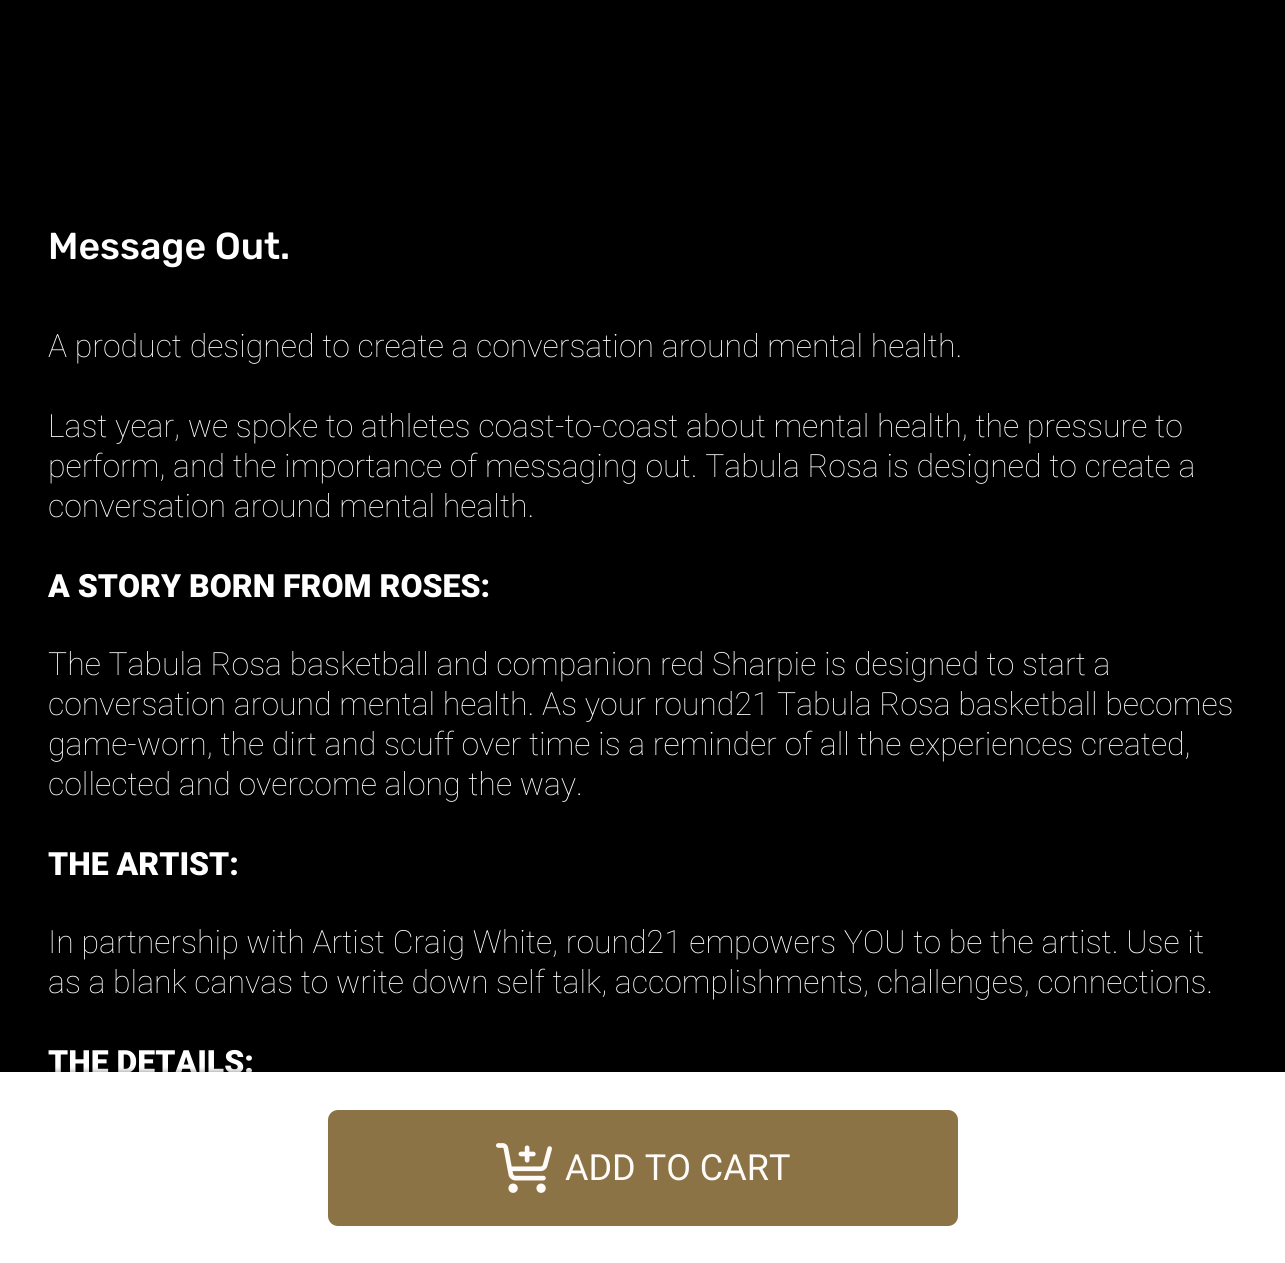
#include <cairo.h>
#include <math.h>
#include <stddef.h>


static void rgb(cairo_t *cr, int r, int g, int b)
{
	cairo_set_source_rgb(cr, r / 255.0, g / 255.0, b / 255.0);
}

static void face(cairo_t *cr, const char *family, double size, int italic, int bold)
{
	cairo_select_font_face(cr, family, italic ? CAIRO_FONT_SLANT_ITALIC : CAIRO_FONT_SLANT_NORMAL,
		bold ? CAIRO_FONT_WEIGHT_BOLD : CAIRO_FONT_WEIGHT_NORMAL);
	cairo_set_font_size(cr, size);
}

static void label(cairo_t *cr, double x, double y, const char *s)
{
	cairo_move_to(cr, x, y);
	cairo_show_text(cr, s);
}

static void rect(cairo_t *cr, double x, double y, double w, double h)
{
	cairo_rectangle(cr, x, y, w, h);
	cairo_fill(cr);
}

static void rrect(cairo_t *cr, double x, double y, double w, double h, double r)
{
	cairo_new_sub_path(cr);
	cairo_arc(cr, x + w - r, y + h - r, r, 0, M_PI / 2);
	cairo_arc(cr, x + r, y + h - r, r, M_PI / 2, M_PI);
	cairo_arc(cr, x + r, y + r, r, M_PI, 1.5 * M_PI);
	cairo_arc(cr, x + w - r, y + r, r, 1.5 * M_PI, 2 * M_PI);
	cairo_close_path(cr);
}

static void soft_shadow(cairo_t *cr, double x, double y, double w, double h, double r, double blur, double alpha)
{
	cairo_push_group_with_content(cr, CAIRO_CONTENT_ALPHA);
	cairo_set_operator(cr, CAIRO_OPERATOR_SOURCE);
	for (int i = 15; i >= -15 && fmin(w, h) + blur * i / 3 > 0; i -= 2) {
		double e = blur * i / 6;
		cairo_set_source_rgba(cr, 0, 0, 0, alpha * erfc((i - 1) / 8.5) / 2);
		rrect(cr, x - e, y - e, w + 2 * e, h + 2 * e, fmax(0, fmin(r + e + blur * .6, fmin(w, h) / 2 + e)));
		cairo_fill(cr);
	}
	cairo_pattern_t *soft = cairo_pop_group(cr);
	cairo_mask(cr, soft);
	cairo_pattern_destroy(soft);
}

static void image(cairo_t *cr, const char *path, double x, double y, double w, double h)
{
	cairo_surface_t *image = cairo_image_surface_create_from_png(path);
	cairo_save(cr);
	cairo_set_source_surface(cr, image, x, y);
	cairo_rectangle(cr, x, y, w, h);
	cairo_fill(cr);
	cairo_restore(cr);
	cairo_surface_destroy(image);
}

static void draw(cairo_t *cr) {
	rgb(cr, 0, 0, 0);
	cairo_paint(cr);
	face(cr, "Rubik Medium", 37.5, 0, 0);
	rgb(cr, 255, 255, 255);
	label(cr, 48, 259, "Message Out.");
	face(cr, "Roboto Thin", 32, 0, 0);
	label(cr, 48, 357, "A product designed to create a conversation around mental health.");
	label(cr, 48, 437, "Last year, we spoke to athletes coast-to-coast about mental health, the pressure to");
	label(cr, 48, 477, "perform, and the importance of messaging out. Tabula Rosa is designed to create a");
	label(cr, 48, 517, "conversation around mental health.");
	face(cr, "Roboto Black", 32, 0, 0);
	label(cr, 48, 597, "A STORY BORN FROM ROSES:");
	face(cr, "Roboto Thin", 32, 0, 0);
	label(cr, 48, 675, "The Tabula Rosa basketball and companion red Sharpie is designed to start a");
	label(cr, 48, 715, "conversation around mental health. As your round21 Tabula Rosa basketball becomes");
	label(cr, 48, 755, "game-worn, the dirt and scuff over time is a reminder of all the experiences created,");
	label(cr, 48, 795, "collected and overcome along the way.");
	face(cr, "Roboto Black", 32, 0, 0);
	label(cr, 48, 875, "THE ARTIST:");
	face(cr, "Roboto Thin", 32, 0, 0);
	label(cr, 48, 953, "In partnership with Artist Craig White, round21 empowers YOU to be the artist. Use it");
	label(cr, 48, 993, "as a blank canvas to write down self talk, accomplishments, challenges, connections.");
	face(cr, "Roboto Black", 32, 0, 0);
	label(cr, 48, 1073, "THE DETAILS:");
	rgb(cr, 0, 0, 0);
	soft_shadow(cr, 2, 1072, 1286, 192, 0, 3, 0.5);
	rgb(cr, 255, 255, 255);
	rect(cr, 0, 1072, 1285, 191);
	rgb(cr, 139, 115, 70);
	rrect(cr, 328, 1110, 630, 116, 10);
	cairo_fill(cr);
	image(cr, "image0.png", 496, 1143, 56, 50);
	face(cr, "Roboto", 36, 0, 0);
	rgb(cr, 255, 251, 248);
	label(cr, 565, 1180, "ADD TO CART");
}

int main(void) {
	cairo_surface_t *surface = cairo_image_surface_create(CAIRO_FORMAT_RGB24, 1285, 1263);
	cairo_t *cr = cairo_create(surface);
	cairo_font_options_t *options = cairo_font_options_create();
	cairo_font_options_set_hint_metrics(options, CAIRO_HINT_METRICS_OFF);
	cairo_font_options_set_hint_style(options, CAIRO_HINT_STYLE_NONE);
	cairo_set_font_options(cr, options);
	cairo_set_miter_limit(cr, 4);
	draw(cr);
	cairo_surface_write_to_png(surface, "render.png");
	cairo_font_options_destroy(options);
	cairo_destroy(cr);
	cairo_surface_destroy(surface);
	return 0;
}
